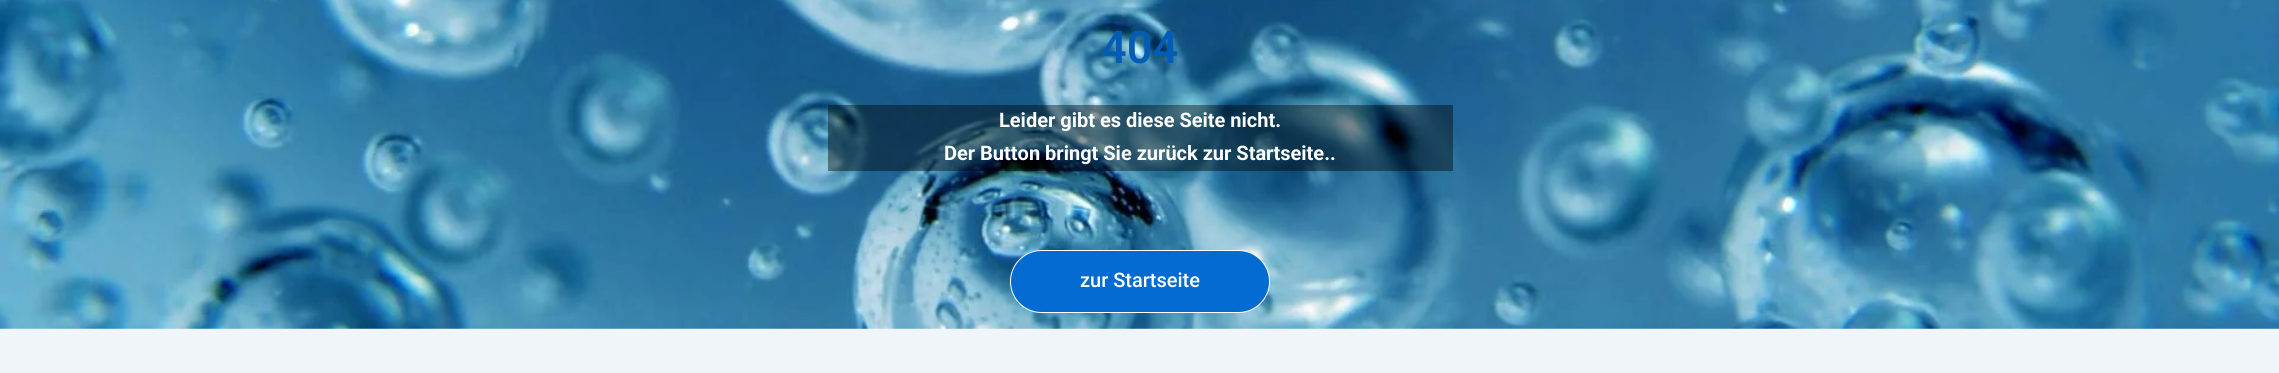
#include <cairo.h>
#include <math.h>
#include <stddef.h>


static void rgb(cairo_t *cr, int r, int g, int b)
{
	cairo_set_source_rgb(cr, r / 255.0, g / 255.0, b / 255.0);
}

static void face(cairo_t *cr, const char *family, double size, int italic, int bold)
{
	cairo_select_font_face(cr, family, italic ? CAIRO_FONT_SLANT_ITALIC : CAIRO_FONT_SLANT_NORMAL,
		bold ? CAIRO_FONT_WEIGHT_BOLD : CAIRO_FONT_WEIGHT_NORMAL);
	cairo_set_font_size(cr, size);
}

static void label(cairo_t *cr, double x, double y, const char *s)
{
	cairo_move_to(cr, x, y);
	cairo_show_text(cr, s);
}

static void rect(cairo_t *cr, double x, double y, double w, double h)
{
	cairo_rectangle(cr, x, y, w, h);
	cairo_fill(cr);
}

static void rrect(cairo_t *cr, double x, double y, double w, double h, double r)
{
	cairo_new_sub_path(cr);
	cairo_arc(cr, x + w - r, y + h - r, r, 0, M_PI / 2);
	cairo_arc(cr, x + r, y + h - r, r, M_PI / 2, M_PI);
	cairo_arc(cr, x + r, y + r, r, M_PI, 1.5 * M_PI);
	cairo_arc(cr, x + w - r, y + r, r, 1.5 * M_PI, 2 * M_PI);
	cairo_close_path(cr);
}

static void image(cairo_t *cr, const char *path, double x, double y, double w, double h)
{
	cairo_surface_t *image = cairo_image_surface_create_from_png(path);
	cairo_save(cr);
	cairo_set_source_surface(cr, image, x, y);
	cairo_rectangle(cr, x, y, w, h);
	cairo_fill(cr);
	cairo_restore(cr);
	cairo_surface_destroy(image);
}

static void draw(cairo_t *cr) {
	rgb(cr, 240, 245, 250);
	cairo_paint(cr);
	image(cr, "image0.png", 0, 0, 2279, 329);
	face(cr, "Roboto SemiBold", 45, 0, 0);
	rgb(cr, 4, 92, 180);
	label(cr, 1101, 63, "404");
	cairo_set_source_rgba(cr, 0, 0, 0, 0.41);
	rect(cr, 828, 105, 625, 66);
	face(cr, "Roboto", 20, 0, 1);
	rgb(cr, 255, 255, 255);
	label(cr, 999, 127, "Leider gibt es diese Seite nicht.");
	label(cr, 944, 160, "Der Button bringt Sie zurück zur Startseite..");
	rgb(cr, 4, 107, 210);
	rrect(cr, 1010.5, 250.5, 259, 62, 31);
	cairo_fill_preserve(cr);
	rgb(cr, 255, 255, 255);
	cairo_set_line_width(cr, 1);
	cairo_stroke(cr);
	face(cr, "Roboto Medium", 20, 0, 0);
	label(cr, 1080, 287, "zur Startseite");
}

int main(void) {
	cairo_surface_t *surface = cairo_image_surface_create(CAIRO_FORMAT_RGB24, 2279, 373);
	cairo_t *cr = cairo_create(surface);
	cairo_font_options_t *options = cairo_font_options_create();
	cairo_font_options_set_hint_metrics(options, CAIRO_HINT_METRICS_OFF);
	cairo_font_options_set_hint_style(options, CAIRO_HINT_STYLE_NONE);
	cairo_set_font_options(cr, options);
	cairo_set_miter_limit(cr, 4);
	draw(cr);
	cairo_surface_write_to_png(surface, "render.png");
	cairo_font_options_destroy(options);
	cairo_destroy(cr);
	cairo_surface_destroy(surface);
	return 0;
}
